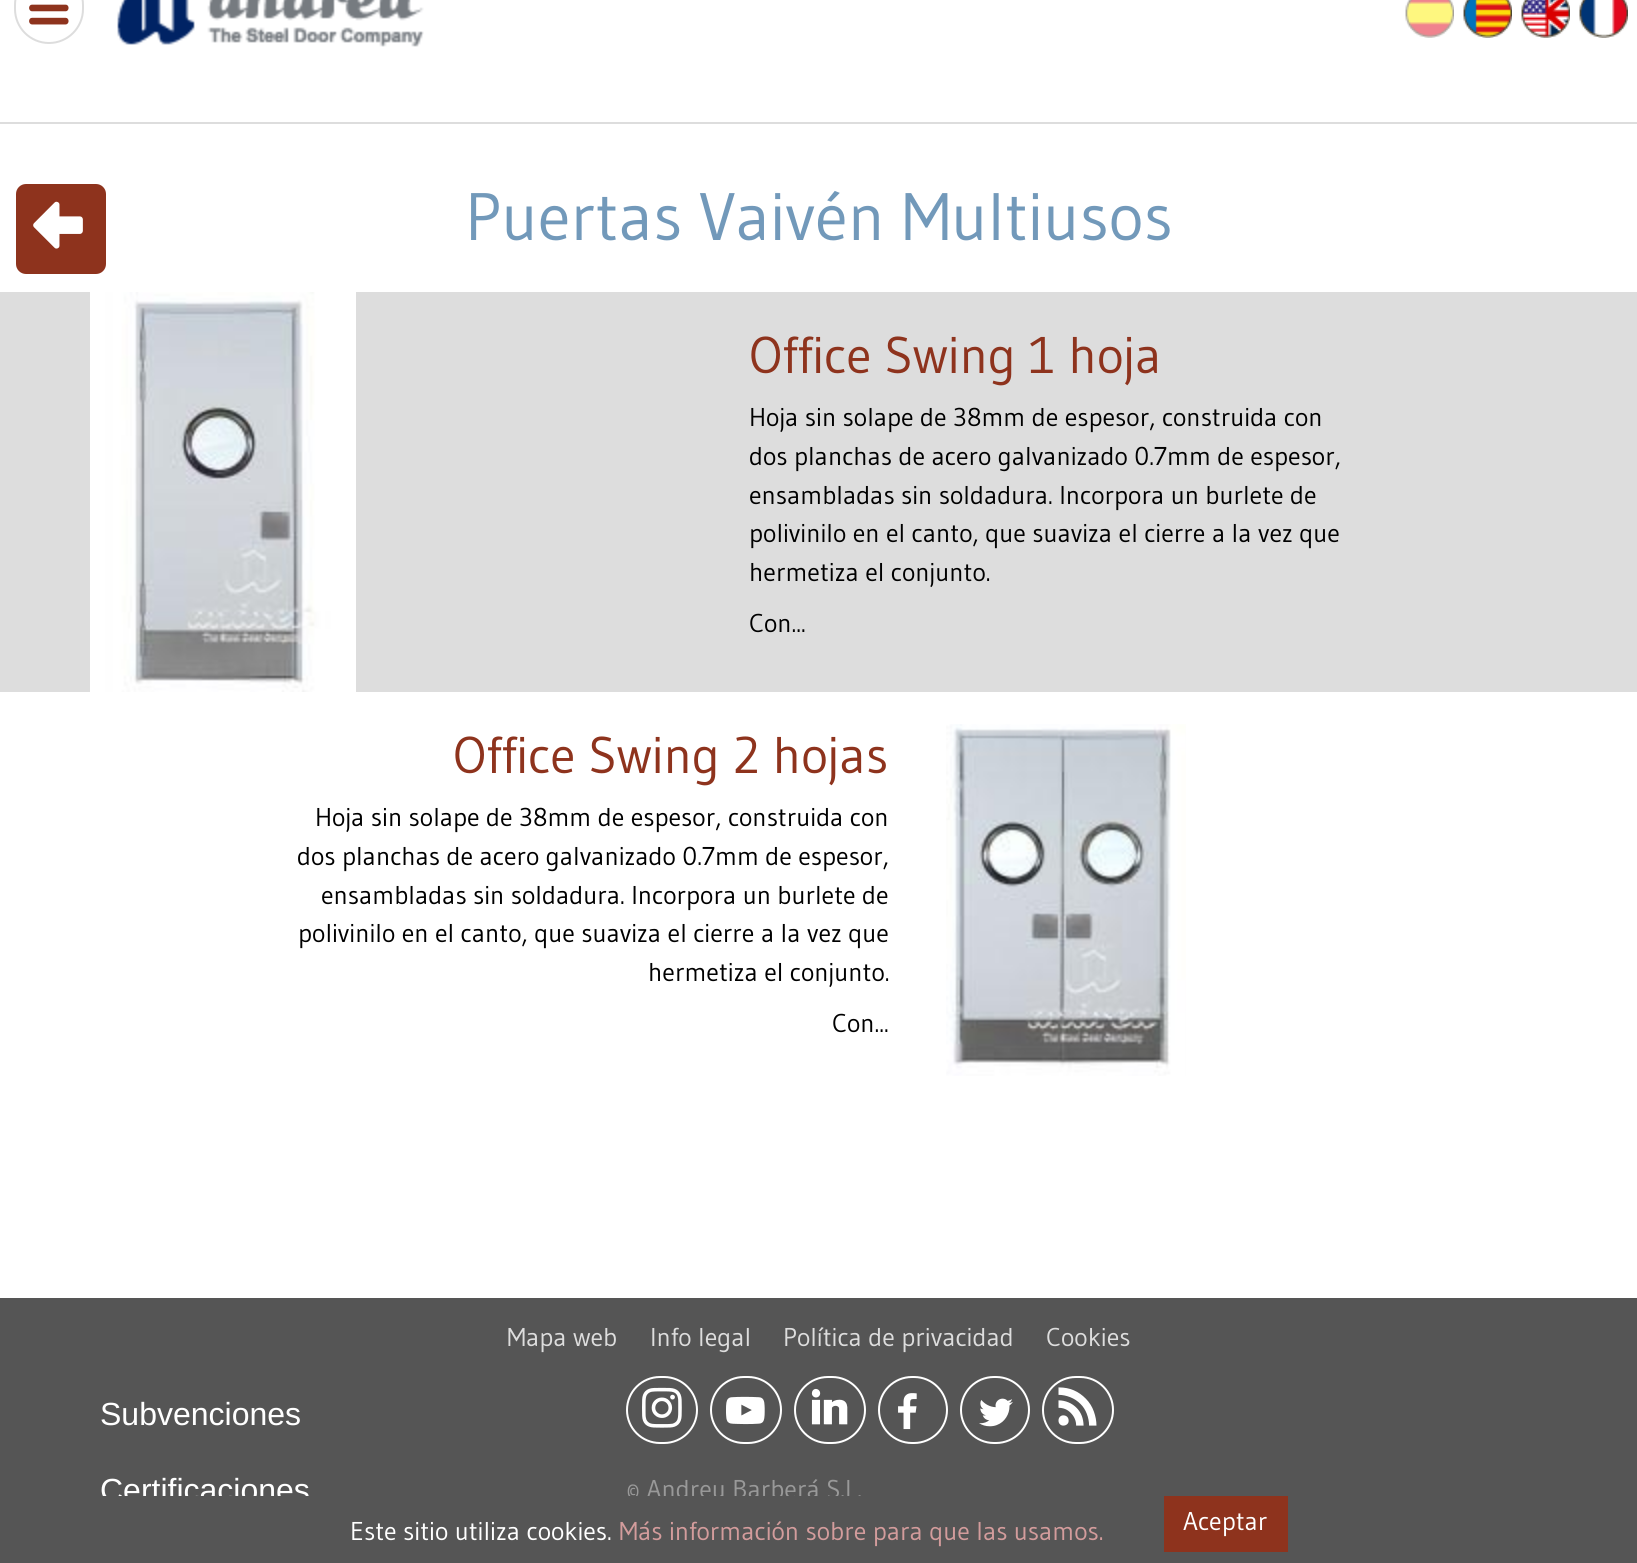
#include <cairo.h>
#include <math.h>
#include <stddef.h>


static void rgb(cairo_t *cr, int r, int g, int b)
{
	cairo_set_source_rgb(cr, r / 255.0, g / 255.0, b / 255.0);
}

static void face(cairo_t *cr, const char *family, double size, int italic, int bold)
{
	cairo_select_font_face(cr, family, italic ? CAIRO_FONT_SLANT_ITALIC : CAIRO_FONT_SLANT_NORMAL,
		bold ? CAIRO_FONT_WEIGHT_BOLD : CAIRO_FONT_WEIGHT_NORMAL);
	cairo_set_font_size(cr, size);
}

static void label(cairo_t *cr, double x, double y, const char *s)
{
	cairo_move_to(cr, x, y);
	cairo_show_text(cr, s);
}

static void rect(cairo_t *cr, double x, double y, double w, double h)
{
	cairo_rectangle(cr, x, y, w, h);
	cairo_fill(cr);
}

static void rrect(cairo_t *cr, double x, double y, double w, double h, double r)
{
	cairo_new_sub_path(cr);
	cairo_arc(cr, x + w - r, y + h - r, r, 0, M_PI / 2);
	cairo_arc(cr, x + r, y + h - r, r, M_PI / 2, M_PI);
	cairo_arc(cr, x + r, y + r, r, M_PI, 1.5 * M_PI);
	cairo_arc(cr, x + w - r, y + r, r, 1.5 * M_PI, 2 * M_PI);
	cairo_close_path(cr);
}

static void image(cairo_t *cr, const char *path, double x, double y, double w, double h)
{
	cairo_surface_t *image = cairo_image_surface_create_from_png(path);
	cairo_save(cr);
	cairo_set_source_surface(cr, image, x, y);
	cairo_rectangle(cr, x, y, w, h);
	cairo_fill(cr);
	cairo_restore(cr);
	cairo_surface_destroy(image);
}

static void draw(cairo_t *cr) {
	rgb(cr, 255, 255, 255);
	cairo_paint(cr);
	rrect(cr, 15, -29, 68, 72, 34);
	rgb(cr, 221, 221, 221);
	cairo_stroke(cr);
	image(cr, "image0.png", 29, 4, 40, 21);
	image(cr, "image1.png", 117, 0, 307, 47);
	image(cr, "image2.png", 1405, 0, 49, 38);
	image(cr, "image3.png", 1463, 0, 49, 38);
	image(cr, "image4.png", 1521, 0, 49, 38);
	image(cr, "image5.png", 1579, 0, 49, 38);
	rect(cr, 0, 122, 1637, 2);
	rgb(cr, 142, 51, 29);
	rrect(cr, 16, 184, 90, 90, 10);
	cairo_fill(cr);
	image(cr, "image6.png", 33, 201, 50, 48);
	face(cr, "Gudea", 67, 0, 0);
	rgb(cr, 114, 153, 186);
	label(cr, 465, 240, "Puertas Vaivén Multiusos");
	rgb(cr, 221, 221, 221);
	rect(cr, 0, 292, 1637, 400);
	image(cr, "image7.png", 90, 292, 266, 400);
	face(cr, "Gudea", 51.5, 0, 0);
	rgb(cr, 142, 51, 29);
	label(cr, 749, 373, "Office Swing 1 hoja");
	face(cr, "Gudea", 25.75, 0, 0);
	rgb(cr, 0, 0, 0);
	label(cr, 749, 426, "Hoja sin solape de 38mm de espesor, construida con");
	label(cr, 749, 465, "dos planchas de acero galvanizado 0.7mm de espesor,");
	label(cr, 749, 504, "ensambladas sin soldadura. Incorpora un burlete de");
	label(cr, 749, 542, "polivinilo en el canto, que suaviza el cierre a la vez que");
	label(cr, 749, 581, "hermetiza el conjunto.");
	label(cr, 749, 632, "Con...");
	face(cr, "Gudea", 51.5, 0, 0);
	rgb(cr, 142, 51, 29);
	label(cr, 453, 773, "Office Swing 2 hojas");
	face(cr, "Gudea", 25.75, 0, 0);
	rgb(cr, 0, 0, 0);
	label(cr, 315, 826, "Hoja sin solape de 38mm de espesor, construida con");
	label(cr, 297, 865, "dos planchas de acero galvanizado 0.7mm de espesor,");
	label(cr, 321, 904, "ensambladas sin soldadura. Incorpora un burlete de");
	label(cr, 298, 942, "polivinilo en el canto, que suaviza el cierre a la vez que");
	label(cr, 648, 981, "hermetiza el conjunto.");
	label(cr, 832, 1032, "Con...");
	image(cr, "image8.png", 946, 724, 240, 352);
	rgb(cr, 85, 85, 85);
	rect(cr, 0, 1298, 1637, 198);
	rgb(cr, 221, 221, 221);
	label(cr, 507, 1346, "Mapa web");
	label(cr, 650, 1346, "Info legal");
	label(cr, 783, 1346, "Política de privacidad");
	label(cr, 1046, 1346, "Cookies");
	face(cr, "Liberation Sans", 32, 0, 0);
	rgb(cr, 255, 255, 255);
	label(cr, 100, 1425, "Subvenciones");
	label(cr, 100, 1501, "Certificaciones");
	rrect(cr, 627, 1377, 70, 66, 33);
	cairo_stroke(cr);
	image(cr, "image9.png", 642, 1387, 40, 41);
	rrect(cr, 711, 1377, 70, 66, 33);
	cairo_stroke(cr);
	image(cr, "image10.png", 726, 1396, 39, 29);
	rrect(cr, 795, 1377, 70, 66, 33);
	cairo_stroke(cr);
	image(cr, "image11.png", 811, 1388, 37, 37);
	rrect(cr, 879, 1377, 68, 66, 33);
	cairo_stroke(cr);
	image(cr, "image12.png", 898, 1393, 19, 37);
	rrect(cr, 961, 1377, 68, 66, 33);
	cairo_stroke(cr);
	image(cr, "image13.png", 979, 1398, 34, 29);
	rrect(cr, 1043, 1377, 70, 66, 33);
	cairo_stroke(cr);
	image(cr, "image14.png", 1058, 1387, 39, 39);
	face(cr, "Gudea", 25.75, 0, 0);
	rgb(cr, 153, 153, 153);
	label(cr, 626, 1498, "© Andreu Barberá S.L.");
	rgb(cr, 85, 85, 85);
	rect(cr, 0, 1496, 1637, 67);
	rgb(cr, 255, 255, 255);
	label(cr, 350, 1540, "Este sitio utiliza cookies.");
	rgb(cr, 211, 156, 156);
	label(cr, 619, 1540, "Más información sobre para que las usamos.");
	rgb(cr, 142, 51, 29);
	rect(cr, 1164, 1496, 124, 56);
	rgb(cr, 255, 255, 255);
	label(cr, 1183, 1530, "Aceptar");
}

int main(void) {
	cairo_surface_t *surface = cairo_image_surface_create(CAIRO_FORMAT_RGB24, 1637, 1563);
	cairo_t *cr = cairo_create(surface);
	cairo_font_options_t *options = cairo_font_options_create();
	cairo_font_options_set_hint_metrics(options, CAIRO_HINT_METRICS_OFF);
	cairo_font_options_set_hint_style(options, CAIRO_HINT_STYLE_NONE);
	cairo_set_font_options(cr, options);
	cairo_set_miter_limit(cr, 4);
	draw(cr);
	cairo_surface_write_to_png(surface, "render.png");
	cairo_font_options_destroy(options);
	cairo_destroy(cr);
	cairo_surface_destroy(surface);
	return 0;
}
